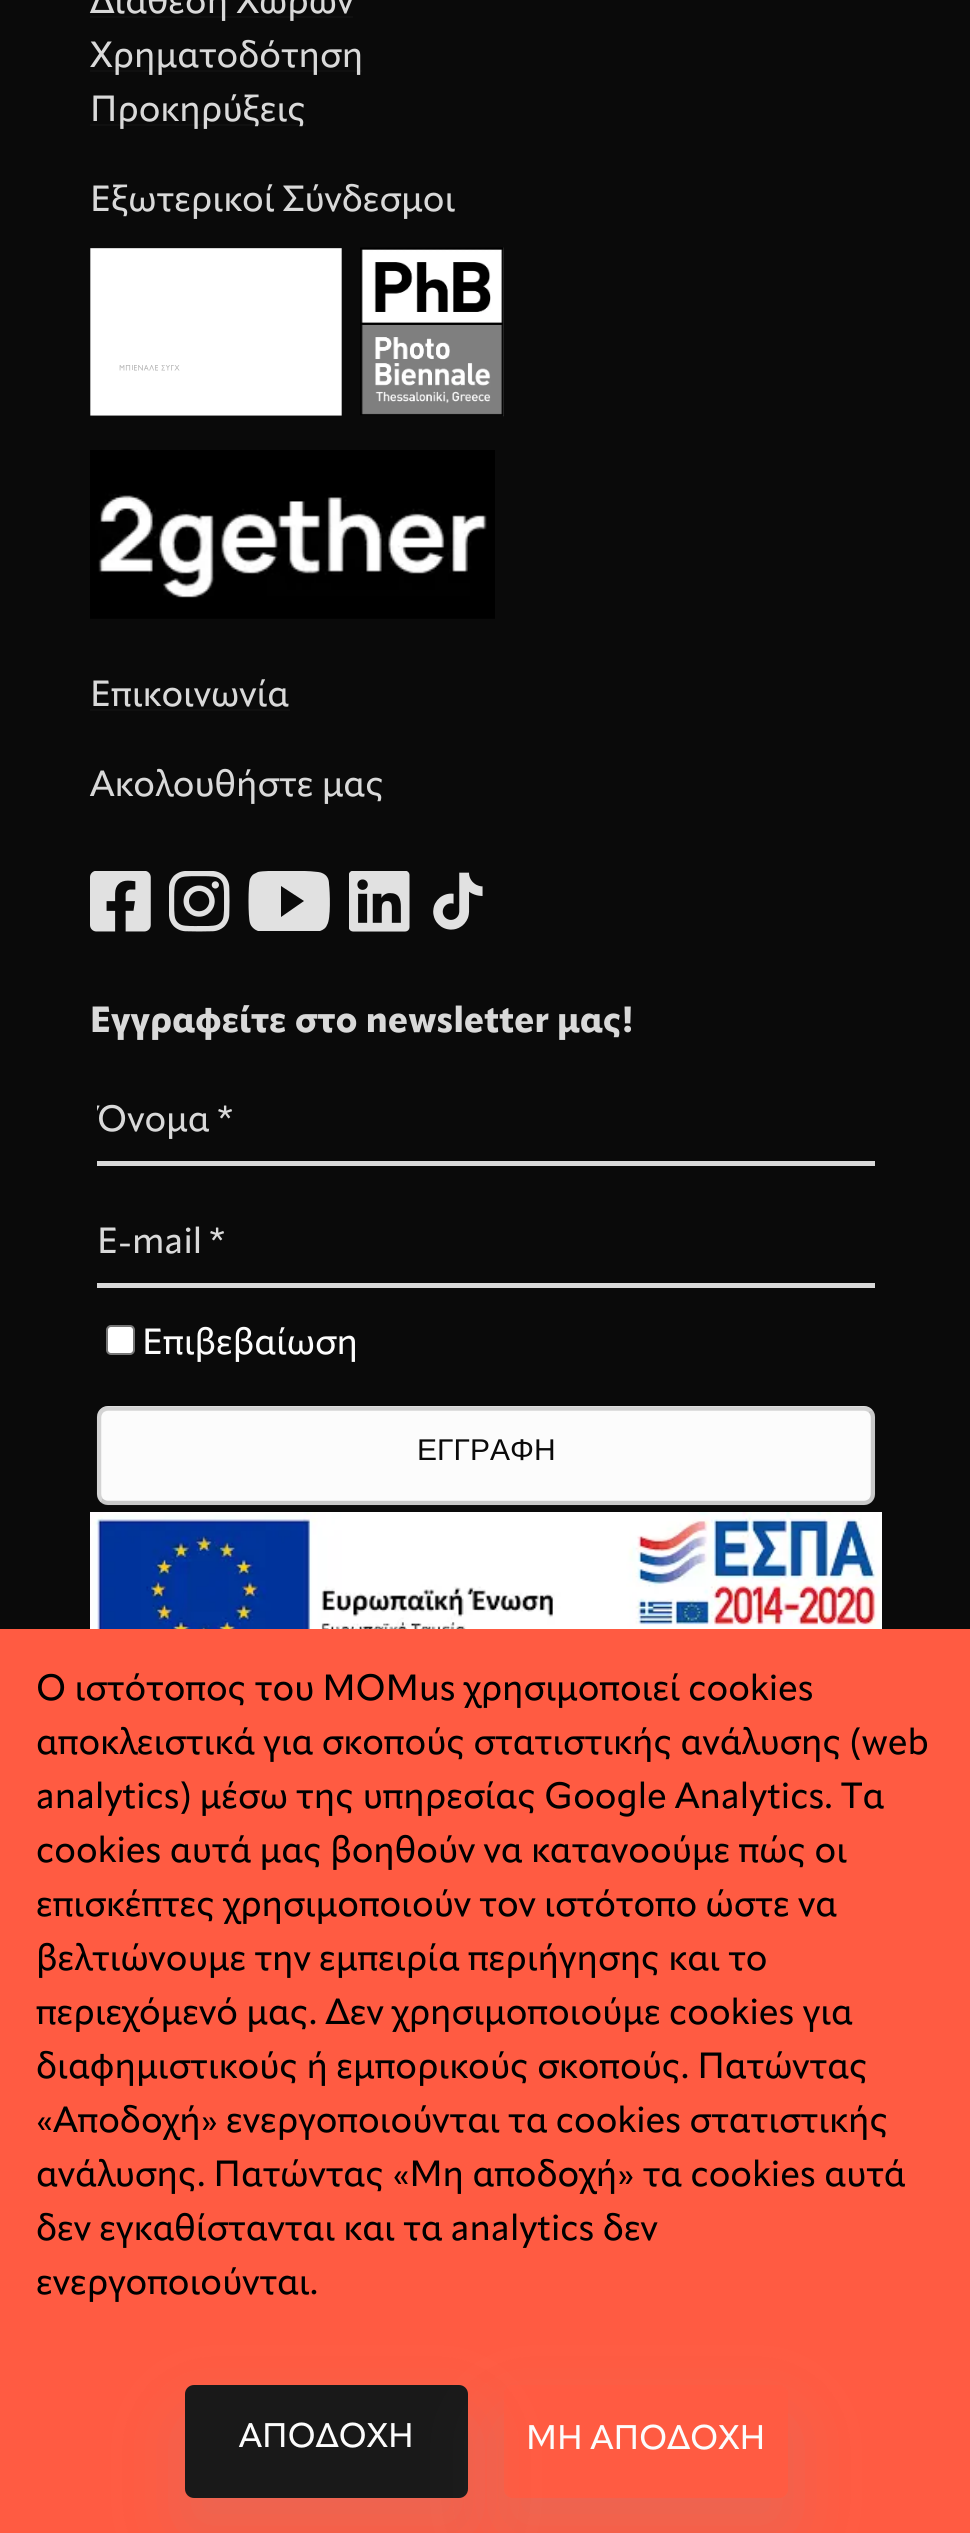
#include <cairo.h>
#include <math.h>
#include <stddef.h>


static void rgb(cairo_t *cr, int r, int g, int b)
{
	cairo_set_source_rgb(cr, r / 255.0, g / 255.0, b / 255.0);
}

static void face(cairo_t *cr, const char *family, double size, int italic, int bold)
{
	cairo_select_font_face(cr, family, italic ? CAIRO_FONT_SLANT_ITALIC : CAIRO_FONT_SLANT_NORMAL,
		bold ? CAIRO_FONT_WEIGHT_BOLD : CAIRO_FONT_WEIGHT_NORMAL);
	cairo_set_font_size(cr, size);
}

static void label(cairo_t *cr, double x, double y, const char *s)
{
	cairo_move_to(cr, x, y);
	cairo_show_text(cr, s);
}

static void rect(cairo_t *cr, double x, double y, double w, double h)
{
	cairo_rectangle(cr, x, y, w, h);
	cairo_fill(cr);
}

static void rrect(cairo_t *cr, double x, double y, double w, double h, double r)
{
	cairo_new_sub_path(cr);
	cairo_arc(cr, x + w - r, y + h - r, r, 0, M_PI / 2);
	cairo_arc(cr, x + r, y + h - r, r, M_PI / 2, M_PI);
	cairo_arc(cr, x + r, y + r, r, M_PI, 1.5 * M_PI);
	cairo_arc(cr, x + w - r, y + r, r, 1.5 * M_PI, 2 * M_PI);
	cairo_close_path(cr);
}

static void soft_shadow(cairo_t *cr, double x, double y, double w, double h, double r, double blur, double alpha)
{
	cairo_push_group_with_content(cr, CAIRO_CONTENT_ALPHA);
	cairo_set_operator(cr, CAIRO_OPERATOR_SOURCE);
	for (int i = 15; i >= -15 && fmin(w, h) + blur * i / 3 > 0; i -= 2) {
		double e = blur * i / 6;
		cairo_set_source_rgba(cr, 0, 0, 0, alpha * erfc((i - 1) / 8.5) / 2);
		rrect(cr, x - e, y - e, w + 2 * e, h + 2 * e, fmax(0, fmin(r + e + blur * .6, fmin(w, h) / 2 + e)));
		cairo_fill(cr);
	}
	cairo_pattern_t *soft = cairo_pop_group(cr);
	cairo_mask(cr, soft);
	cairo_pattern_destroy(soft);
}

static void image(cairo_t *cr, const char *path, double x, double y, double w, double h)
{
	cairo_surface_t *image = cairo_image_surface_create_from_png(path);
	cairo_save(cr);
	cairo_set_source_surface(cr, image, x, y);
	cairo_rectangle(cr, x, y, w, h);
	cairo_fill(cr);
	cairo_restore(cr);
	cairo_surface_destroy(image);
}

static void draw(cairo_t *cr) {
	rgb(cr, 10, 10, 10);
	cairo_paint(cr);
	rgb(cr, 16, 16, 16);
	rect(cr, 90, 16, 263, 2);
	face(cr, "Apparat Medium", 36, 0, 0);
	rgb(cr, 217, 217, 217);
	label(cr, 90, 13, "Διάθεση Χώρων");
	rgb(cr, 16, 16, 16);
	rect(cr, 90, 70, 272, 2);
	rgb(cr, 217, 217, 217);
	label(cr, 90, 67, "Χρηματοδότηση");
	rgb(cr, 16, 16, 16);
	rect(cr, 90, 124, 216, 2);
	rgb(cr, 217, 217, 217);
	label(cr, 90, 121, "Προκηρύξεις");
	label(cr, 90, 211, "Εξωτερικοί Σύνδεσμοι");
	image(cr, "image0.png", 90, 248, 252, 168);
	image(cr, "image1.png", 360, 247, 144, 170);
	image(cr, "image2.png", 90, 450, 405, 169);
	label(cr, 90, 706, "Επικοινωνία");
	rgb(cr, 16, 16, 16);
	rect(cr, 90, 709, 200, 2);
	rgb(cr, 217, 217, 217);
	label(cr, 90, 796, "Ακολουθήστε μας");
	image(cr, "image3.png", 90, 871, 61, 61);
	image(cr, "image4.png", 169, 871, 61, 61);
	cairo_save(cr);
	cairo_rectangle(cr, 248, 871, 83, 61);
	cairo_clip(cr);
	rgb(cr, 225, 225, 225);
	cairo_new_path(cr);
	cairo_move_to(cr, 329, 884);
	cairo_curve_to(cr, 329, 879, 327, 875, 322, 873);
	cairo_curve_to(cr, 317, 870, 265, 870, 258, 872);
	cairo_line_to(cr, 254, 874);
	cairo_curve_to(cr, 252, 875, 251, 877, 250, 879);
	cairo_curve_to(cr, 248, 885, 248, 917, 250, 923);
	cairo_curve_to(cr, 251, 927, 255, 930, 258, 931);
	cairo_line_to(cr, 275, 931);
	cairo_line_to(cr, 307, 931);
	cairo_line_to(cr, 320, 931);
	cairo_curve_to(cr, 323, 930, 326, 928, 327, 925);
	cairo_curve_to(cr, 331, 919, 330, 892, 329, 884);
	cairo_close_path(cr);
	cairo_move_to(cr, 281, 917);
	cairo_line_to(cr, 281, 886);
	cairo_line_to(cr, 304, 901);
	cairo_close_path(cr);
	cairo_fill(cr);
	cairo_restore(cr);
	image(cr, "image5.png", 349, 871, 61, 61);
	image(cr, "image6.png", 433, 872, 50, 58);
	face(cr, "Apparat ExtraBold", 36, 0, 0);
	label(cr, 90, 1032, "Εγγραφείτε στο newsletter μας!");
	cairo_save(cr);
	cairo_rectangle(cr, 97, 1098, 135, 52);
	cairo_clip(cr);
	face(cr, "Apparat Medium", 36, 0, 0);
	label(cr, 97, 1131, "Όνομα");
	cairo_restore(cr);
	face(cr, "Apparat Medium", 36, 0, 0);
	label(cr, 217, 1131, "*");
	rect(cr, 97, 1161, 778, 5);
	label(cr, 97, 1253, "E-mail");
	label(cr, 209, 1253, "*");
	rect(cr, 97, 1283, 778, 5);
	rgb(cr, 255, 255, 255);
	rrect(cr, 107, 1326, 27, 28, 4);
	cairo_fill_preserve(cr);
	rgb(cr, 118, 118, 118);
	cairo_stroke(cr);
	rgb(cr, 252, 252, 252);
	label(cr, 142, 1354, "Επιβεβαίωση");
	rrect(cr, 97, 1406, 778, 99, 11);
	cairo_fill(cr);
	cairo_new_path(cr);
	cairo_move_to(cr, 870.5, 1411);
	cairo_curve_to(cr, 872, 1413, 873, 1415, 873, 1417.5);
	cairo_line_to(cr, 873, 1494);
	cairo_curve_to(cr, 873, 1496.5, 872, 1498.5, 870.5, 1500.5);
	cairo_curve_to(cr, 868.5, 1502, 866.5, 1503, 864, 1503);
	cairo_line_to(cr, 108, 1503);
	cairo_curve_to(cr, 105.5, 1503, 103.5, 1502, 101.5, 1500.5);
	cairo_set_source_rgba(cr, 0.31, 0.31, 0.31, 0.3);
	cairo_set_line_width(cr, 4.5);
	cairo_stroke(cr);
	cairo_new_path(cr);
	cairo_move_to(cr, 101.5, 1500.5);
	cairo_curve_to(cr, 100, 1498.5, 99, 1496.5, 99, 1494);
	cairo_line_to(cr, 99, 1417.5);
	cairo_curve_to(cr, 99, 1415, 100, 1413, 101.5, 1411);
	cairo_curve_to(cr, 103.5, 1409.5, 105.5, 1408.5, 108, 1408.5);
	cairo_line_to(cr, 864, 1408.5);
	cairo_curve_to(cr, 866.5, 1408.5, 868.5, 1409.5, 870.5, 1411);
	cairo_set_source_rgba(cr, 0.463, 0.463, 0.463, 0.3);
	cairo_stroke(cr);
	face(cr, "Liberation Sans", 30, 0, 0);
	rgb(cr, 10, 10, 10);
	label(cr, 417, 1460, "ΕΓΓΡΑΦΗ");
	image(cr, "image7.png", 90, 1512, 792, 117);
	rgb(cr, 255, 91, 66);
	rect(cr, 0, 1629, 970, 904);
	face(cr, "Apparat Medium", 36, 0, 0);
	rgb(cr, 0, 0, 0);
	label(cr, 36, 1700, "Ο ιστότοπος του MOMus χρησιμοποιεί cookies");
	label(cr, 36, 1754, "αποκλειστικά για σκοπούς στατιστικής ανάλυσης (web");
	label(cr, 36, 1808, "analytics) μέσω της υπηρεσίας Google Analytics. Τα");
	label(cr, 36, 1862, "cookies αυτά μας βοηθούν να κατανοούμε πώς οι");
	label(cr, 36, 1916, "επισκέπτες χρησιμοποιούν τον ιστότοπο ώστε να");
	label(cr, 36, 1970, "βελτιώνουμε την εμπειρία περιήγησης και το");
	label(cr, 36, 2024, "περιεχόμενό μας. Δεν χρησιμοποιούμε cookies για");
	label(cr, 36, 2078, "διαφημιστικούς ή εμπορικούς σκοπούς. Πατώντας");
	label(cr, 36, 2132, "«Αποδοχή» ενεργοποιούνται τα cookies στατιστικής");
	label(cr, 36, 2186, "ανάλυσης. Πατώντας «Μη αποδοχή» τα cookies αυτά");
	label(cr, 36, 2240, "δεν εγκαθίστανται και τα analytics δεν");
	label(cr, 36, 2294, "ενεργοποιούνται.");
	rgb(cr, 138, 149, 158);
	soft_shadow(cr, 185, 2419, 283, 112, 9, 34, 0.18);
	rgb(cr, 25, 25, 25);
	rrect(cr, 185, 2385, 283, 113, 9);
	cairo_fill(cr);
	face(cr, "Apparat Medium", 33.75, 0, 0);
	rgb(cr, 252, 252, 252);
	label(cr, 239, 2447, "ΑΠΟΔΟΧΗ");
	cairo_save(cr);
	cairo_set_fill_rule(cr, CAIRO_FILL_RULE_EVEN_ODD);
	cairo_new_path(cr);
	cairo_move_to(cr, 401, 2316);
	cairo_line_to(cr, 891, 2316);
	cairo_line_to(cr, 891, 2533);
	cairo_line_to(cr, 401, 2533);
	cairo_close_path(cr);
	cairo_move_to(cr, 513, 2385);
	cairo_line_to(cr, 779, 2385);
	cairo_curve_to(cr, 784, 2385, 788, 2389, 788, 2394);
	cairo_line_to(cr, 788, 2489);
	cairo_curve_to(cr, 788, 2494, 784, 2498, 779, 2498);
	cairo_line_to(cr, 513, 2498);
	cairo_curve_to(cr, 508, 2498, 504, 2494, 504, 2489);
	cairo_line_to(cr, 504, 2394);
	cairo_curve_to(cr, 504, 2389, 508, 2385, 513, 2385);
	cairo_close_path(cr);
	cairo_clip(cr);
	rgb(cr, 138, 149, 158);
	soft_shadow(cr, 504, 2419, 284, 112, 9, 34, 0.18);
	cairo_restore(cr);
	label(cr, 526, 2449, "ΜΗ ΑΠΟΔΟΧΗ");
}

int main(void) {
	cairo_surface_t *surface = cairo_image_surface_create(CAIRO_FORMAT_RGB24, 970, 2533);
	cairo_t *cr = cairo_create(surface);
	cairo_font_options_t *options = cairo_font_options_create();
	cairo_font_options_set_hint_metrics(options, CAIRO_HINT_METRICS_OFF);
	cairo_font_options_set_hint_style(options, CAIRO_HINT_STYLE_NONE);
	cairo_set_font_options(cr, options);
	cairo_set_miter_limit(cr, 4);
	draw(cr);
	cairo_surface_write_to_png(surface, "render.png");
	cairo_font_options_destroy(options);
	cairo_destroy(cr);
	cairo_surface_destroy(surface);
	return 0;
}
